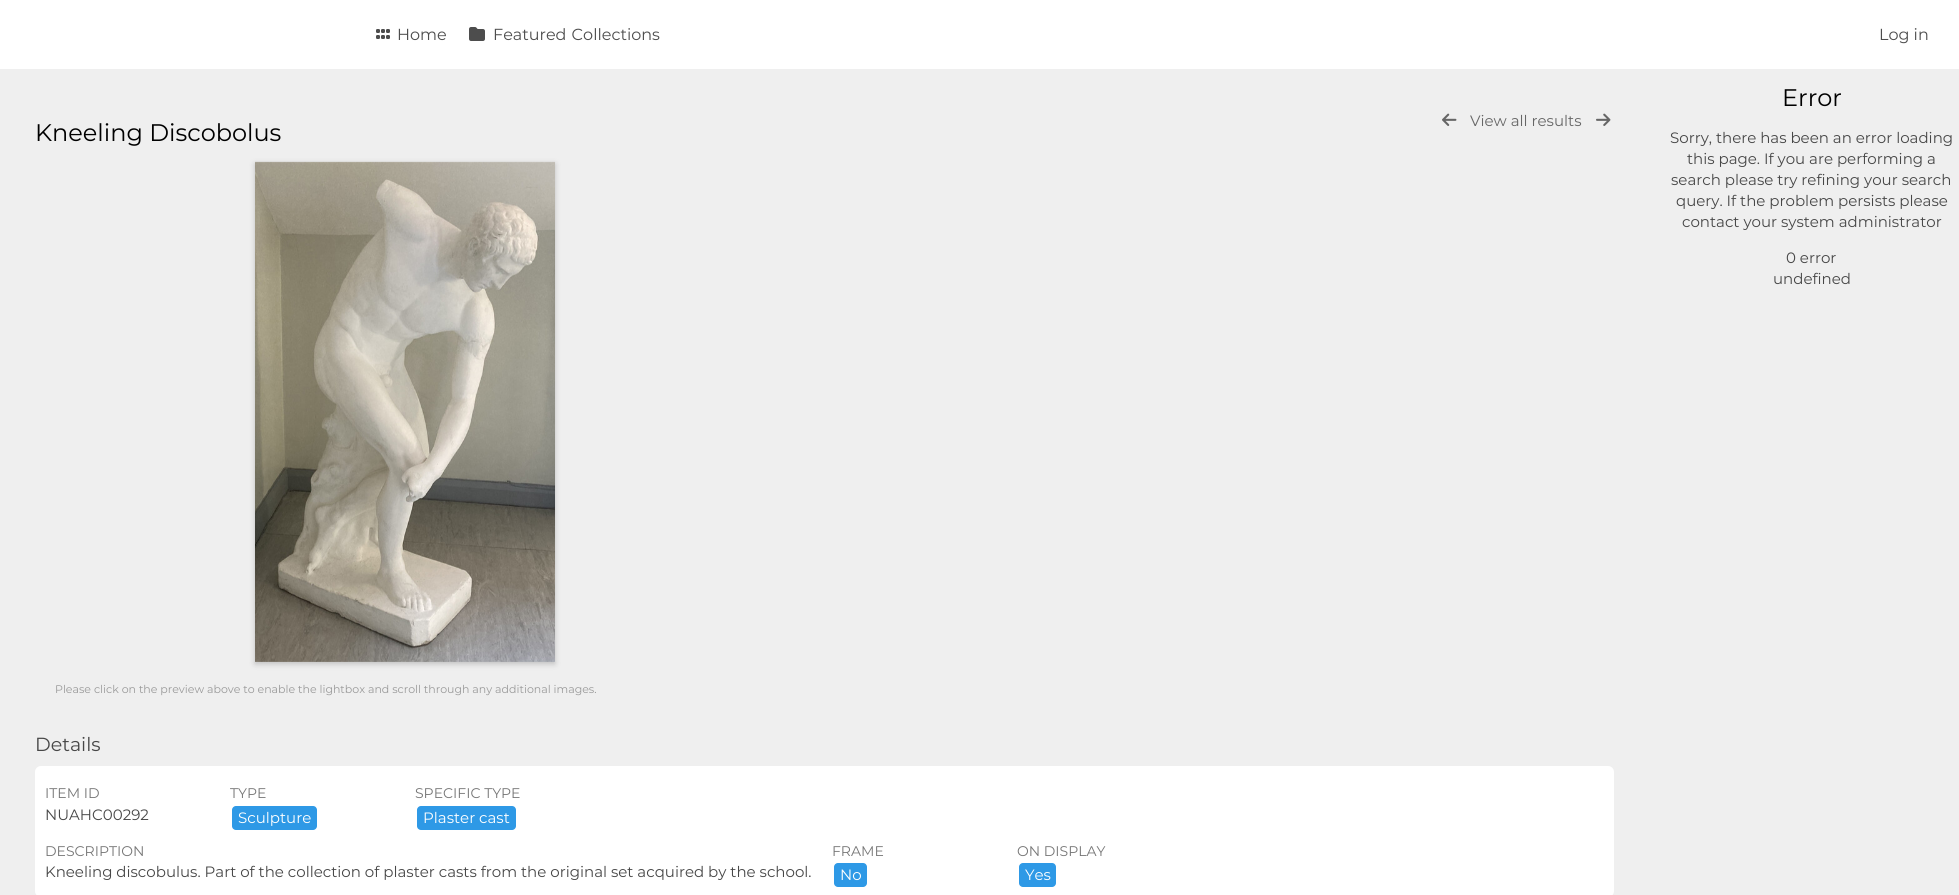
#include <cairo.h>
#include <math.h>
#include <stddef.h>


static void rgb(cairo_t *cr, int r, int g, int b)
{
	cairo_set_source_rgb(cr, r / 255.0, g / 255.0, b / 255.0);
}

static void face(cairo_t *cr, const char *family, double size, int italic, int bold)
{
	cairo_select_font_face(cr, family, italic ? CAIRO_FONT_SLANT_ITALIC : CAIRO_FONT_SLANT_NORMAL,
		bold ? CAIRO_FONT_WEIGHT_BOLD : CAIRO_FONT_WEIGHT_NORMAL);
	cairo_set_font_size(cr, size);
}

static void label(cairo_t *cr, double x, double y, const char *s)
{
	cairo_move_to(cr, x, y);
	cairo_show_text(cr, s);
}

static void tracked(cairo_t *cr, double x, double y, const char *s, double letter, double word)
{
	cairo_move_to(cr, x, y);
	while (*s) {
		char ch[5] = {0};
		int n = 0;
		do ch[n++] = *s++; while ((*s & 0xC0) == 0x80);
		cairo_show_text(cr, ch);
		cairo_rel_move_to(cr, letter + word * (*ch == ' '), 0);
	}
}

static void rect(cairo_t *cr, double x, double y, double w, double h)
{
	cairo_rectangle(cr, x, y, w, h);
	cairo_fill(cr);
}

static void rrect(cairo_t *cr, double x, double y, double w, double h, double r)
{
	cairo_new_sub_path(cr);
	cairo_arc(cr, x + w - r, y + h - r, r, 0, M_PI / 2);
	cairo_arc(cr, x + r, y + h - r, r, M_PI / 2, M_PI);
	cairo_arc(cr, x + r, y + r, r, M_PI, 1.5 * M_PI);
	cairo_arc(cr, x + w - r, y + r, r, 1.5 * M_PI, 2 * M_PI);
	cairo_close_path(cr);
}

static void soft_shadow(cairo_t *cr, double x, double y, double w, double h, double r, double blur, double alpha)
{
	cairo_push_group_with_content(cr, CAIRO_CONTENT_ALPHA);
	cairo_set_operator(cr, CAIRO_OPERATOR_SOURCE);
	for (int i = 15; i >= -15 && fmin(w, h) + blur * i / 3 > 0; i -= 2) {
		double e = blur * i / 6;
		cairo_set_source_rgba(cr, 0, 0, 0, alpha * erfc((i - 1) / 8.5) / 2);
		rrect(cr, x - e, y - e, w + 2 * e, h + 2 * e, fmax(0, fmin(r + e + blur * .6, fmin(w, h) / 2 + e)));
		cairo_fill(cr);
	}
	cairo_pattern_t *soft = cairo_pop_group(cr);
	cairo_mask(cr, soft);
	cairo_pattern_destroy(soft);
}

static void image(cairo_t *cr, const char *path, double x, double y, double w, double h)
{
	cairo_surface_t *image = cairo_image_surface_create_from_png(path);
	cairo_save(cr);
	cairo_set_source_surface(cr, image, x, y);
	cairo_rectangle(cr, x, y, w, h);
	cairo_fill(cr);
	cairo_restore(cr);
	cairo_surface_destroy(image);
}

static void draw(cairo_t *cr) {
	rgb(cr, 239, 239, 239);
	cairo_paint(cr);
	rgb(cr, 255, 255, 255);
	rect(cr, 0, 0, 1959, 69);
	image(cr, "image0.png", 376, 29, 14, 10);
	face(cr, "Montserrat", 16, 0, 0);
	rgb(cr, 77, 77, 77);
	label(cr, 397, 40, "Home");
	image(cr, "image1.png", 469, 27, 16, 14);
	tracked(cr, 493, 40, "Featured Collections", 0, 1);
	label(cr, 1879, 40, "Log in");
	image(cr, "image2.png", 1442, 113, 15, 13);
	face(cr, "Montserrat", 15, 0, 0);
	rgb(cr, 102, 102, 102);
	label(cr, 1470, 126, "View all results");
	image(cr, "image3.png", 1596, 113, 15, 13);
	face(cr, "Montserrat", 24, 0, 0);
	rgb(cr, 0, 0, 0);
	label(cr, 35, 141, "Kneeling Discobolus");
	rgb(cr, 0, 0, 0);
	soft_shadow(cr, 255, 164, 300, 500, 0, 3, 0.2);
	image(cr, "image4.png", 255, 161, 300, 501);
	face(cr, "Montserrat", 11, 0, 0);
	rgb(cr, 153, 153, 153);
	label(cr, 55, 693, "Please click on the preview above to enable the lightbox and scroll through any additional images.");
	face(cr, "Montserrat", 19, 0, 0);
	rgb(cr, 71, 71, 71);
	label(cr, 35, 751, "Details");
	rgb(cr, 255, 255, 255);
	rrect(cr, 35, 766, 1579, 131, 6);
	cairo_fill(cr);
	face(cr, "Montserrat", 14, 0, 0);
	rgb(cr, 118, 118, 118);
	label(cr, 45, 798, "ITEM ID");
	face(cr, "Montserrat", 15, 0, 0);
	rgb(cr, 71, 71, 71);
	label(cr, 45, 820, "NUAHC00292");
	face(cr, "Montserrat", 14, 0, 0);
	rgb(cr, 118, 118, 118);
	label(cr, 230, 798, "TYPE");
	rgb(cr, 46, 153, 230);
	rrect(cr, 232, 806, 85, 24, 4);
	cairo_fill(cr);
	face(cr, "Montserrat", 15, 0, 0);
	rgb(cr, 255, 255, 255);
	label(cr, 238, 823, "Sculpture");
	face(cr, "Montserrat", 14, 0, 0);
	rgb(cr, 118, 118, 118);
	label(cr, 415, 798, "SPECIFIC TYPE");
	rgb(cr, 46, 153, 230);
	rrect(cr, 417, 806, 99, 24, 4);
	cairo_fill(cr);
	face(cr, "Montserrat", 15, 0, 0);
	rgb(cr, 255, 255, 255);
	label(cr, 423, 823, "Plaster cast");
	face(cr, "Montserrat", 14, 0, 0);
	rgb(cr, 118, 118, 118);
	label(cr, 45, 856, "DESCRIPTION");
	face(cr, "Montserrat", 15, 0, 0);
	rgb(cr, 71, 71, 71);
	label(cr, 45, 877, "Kneeling discobulus. Part of the collection of plaster casts from the original set acquired by the school.");
	face(cr, "Montserrat", 14, 0, 0);
	rgb(cr, 118, 118, 118);
	label(cr, 832, 856, "FRAME");
	rgb(cr, 46, 153, 230);
	rrect(cr, 834, 863, 33, 24, 4);
	cairo_fill(cr);
	face(cr, "Montserrat", 15, 0, 0);
	rgb(cr, 255, 255, 255);
	label(cr, 840, 880, "No");
	face(cr, "Montserrat", 14, 0, 0);
	rgb(cr, 118, 118, 118);
	label(cr, 1017, 856, "ON DISPLAY");
	rgb(cr, 46, 153, 230);
	rrect(cr, 1019, 863, 37, 24, 4);
	cairo_fill(cr);
	face(cr, "Montserrat", 15, 0, 0);
	rgb(cr, 255, 255, 255);
	label(cr, 1025, 880, "Yes");
	face(cr, "Montserrat", 24, 0, 0);
	rgb(cr, 0, 0, 0);
	label(cr, 1782, 106, "Error");
	face(cr, "Montserrat", 15, 0, 0);
	rgb(cr, 71, 71, 71);
	label(cr, 1670, 143, "Sorry, there has been an error loading");
	label(cr, 1687, 164, "this page. If you are performing a");
	label(cr, 1671, 185, "search please try refining your search");
	label(cr, 1676, 206, "query. If the problem persists please");
	label(cr, 1682, 227, "contact your system administrator");
	label(cr, 1786, 263, "0 error");
	label(cr, 1773, 284, "undefined");
}

int main(void) {
	cairo_surface_t *surface = cairo_image_surface_create(CAIRO_FORMAT_RGB24, 1959, 895);
	cairo_t *cr = cairo_create(surface);
	cairo_font_options_t *options = cairo_font_options_create();
	cairo_font_options_set_hint_metrics(options, CAIRO_HINT_METRICS_OFF);
	cairo_font_options_set_hint_style(options, CAIRO_HINT_STYLE_NONE);
	cairo_set_font_options(cr, options);
	cairo_set_miter_limit(cr, 4);
	draw(cr);
	cairo_surface_write_to_png(surface, "render.png");
	cairo_font_options_destroy(options);
	cairo_destroy(cr);
	cairo_surface_destroy(surface);
	return 0;
}
